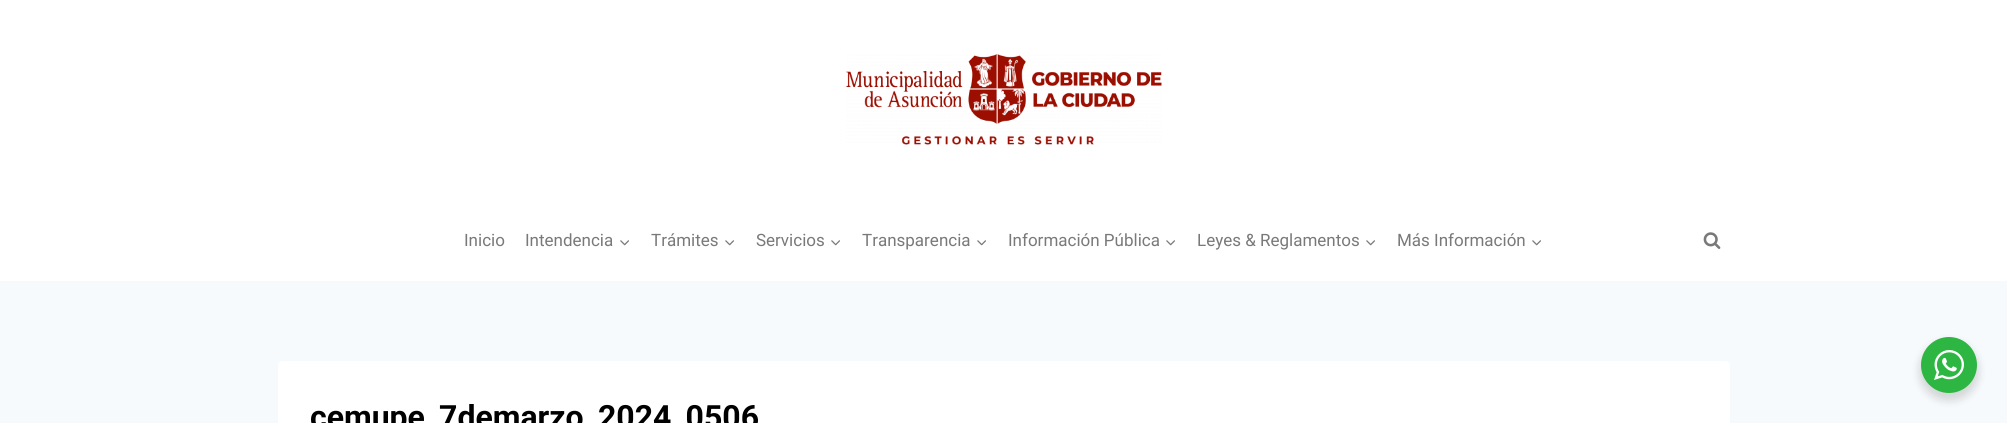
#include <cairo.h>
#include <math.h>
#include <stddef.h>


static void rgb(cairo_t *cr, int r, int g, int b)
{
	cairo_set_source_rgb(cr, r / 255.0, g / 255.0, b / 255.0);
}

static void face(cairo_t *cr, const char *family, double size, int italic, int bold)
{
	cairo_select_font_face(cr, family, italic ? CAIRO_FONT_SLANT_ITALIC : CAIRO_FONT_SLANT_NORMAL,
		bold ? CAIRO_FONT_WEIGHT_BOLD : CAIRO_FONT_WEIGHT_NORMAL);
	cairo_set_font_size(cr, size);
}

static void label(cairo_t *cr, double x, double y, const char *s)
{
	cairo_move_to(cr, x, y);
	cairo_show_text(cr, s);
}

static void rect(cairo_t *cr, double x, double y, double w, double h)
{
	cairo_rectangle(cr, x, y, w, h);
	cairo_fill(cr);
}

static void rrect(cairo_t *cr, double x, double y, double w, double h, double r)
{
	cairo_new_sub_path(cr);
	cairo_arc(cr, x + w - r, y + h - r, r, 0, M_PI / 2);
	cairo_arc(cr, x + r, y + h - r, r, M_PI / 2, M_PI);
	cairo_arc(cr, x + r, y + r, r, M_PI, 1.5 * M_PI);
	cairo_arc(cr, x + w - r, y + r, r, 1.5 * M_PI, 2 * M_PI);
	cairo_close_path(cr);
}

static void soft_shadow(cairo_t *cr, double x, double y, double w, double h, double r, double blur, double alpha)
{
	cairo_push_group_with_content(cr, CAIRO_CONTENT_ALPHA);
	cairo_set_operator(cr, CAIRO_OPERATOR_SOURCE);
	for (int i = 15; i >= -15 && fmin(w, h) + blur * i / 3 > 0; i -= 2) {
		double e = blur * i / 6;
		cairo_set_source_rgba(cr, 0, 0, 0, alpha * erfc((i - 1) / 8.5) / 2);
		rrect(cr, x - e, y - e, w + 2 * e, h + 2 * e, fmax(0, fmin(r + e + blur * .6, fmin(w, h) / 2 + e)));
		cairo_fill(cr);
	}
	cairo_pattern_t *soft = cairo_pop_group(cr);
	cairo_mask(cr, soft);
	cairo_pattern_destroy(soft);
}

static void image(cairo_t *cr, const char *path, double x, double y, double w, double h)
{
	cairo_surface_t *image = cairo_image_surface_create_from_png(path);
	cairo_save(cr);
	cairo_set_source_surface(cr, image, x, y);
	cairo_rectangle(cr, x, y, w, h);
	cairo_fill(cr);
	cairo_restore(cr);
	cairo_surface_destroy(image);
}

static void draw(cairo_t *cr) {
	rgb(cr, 247, 250, 252);
	cairo_paint(cr);
	rgb(cr, 255, 255, 255);
	rect(cr, 0, 0, 2007, 281);
	image(cr, "image0.png", 846, 54, 316, 91);
	face(cr, "Roboto", 17, 0, 0);
	rgb(cr, 121, 121, 121);
	label(cr, 464, 246, "Inicio");
	label(cr, 525, 246, "Intendencia");
	image(cr, "image1.png", 620, 240, 9, 6);
	label(cr, 651, 246, "Trámites");
	image(cr, "image1.png", 725, 240, 9, 6);
	label(cr, 756, 246, "Servicios");
	image(cr, "image1.png", 831, 240, 9, 6);
	label(cr, 862, 246, "Transparencia");
	image(cr, "image1.png", 977, 240, 9, 6);
	label(cr, 1008, 246, "Información Pública");
	image(cr, "image1.png", 1166, 240, 9, 6);
	label(cr, 1197, 246, "Leyes & Reglamentos");
	image(cr, "image1.png", 1366, 240, 9, 6);
	label(cr, 1397, 246, "Más Información");
	image(cr, "image1.png", 1532, 240, 9, 6);
	image(cr, "image2.png", 1703, 232, 18, 17);
	rgb(cr, 255, 255, 255);
	rrect(cr, 278, 361, 1452, 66, 4);
	cairo_fill(cr);
	face(cr, "Roboto", 32, 0, 1);
	rgb(cr, 0, 0, 0);
	label(cr, 310, 428, "cemupe_7demarzo_2024_0506");
	rgb(cr, 0, 0, 0);
	soft_shadow(cr, 1919, 341, 60, 60, 30, 4, 0.14);
	rgb(cr, 45, 183, 66);
	cairo_arc(cr, 1949, 365, 28, 0, 2 * M_PI);
	cairo_fill(cr);
	image(cr, "image3.png", 1934, 350, 30, 30);
}

int main(void) {
	cairo_surface_t *surface = cairo_image_surface_create(CAIRO_FORMAT_RGB24, 2007, 423);
	cairo_t *cr = cairo_create(surface);
	cairo_font_options_t *options = cairo_font_options_create();
	cairo_font_options_set_hint_metrics(options, CAIRO_HINT_METRICS_OFF);
	cairo_font_options_set_hint_style(options, CAIRO_HINT_STYLE_NONE);
	cairo_set_font_options(cr, options);
	cairo_set_miter_limit(cr, 4);
	draw(cr);
	cairo_surface_write_to_png(surface, "render.png");
	cairo_font_options_destroy(options);
	cairo_destroy(cr);
	cairo_surface_destroy(surface);
	return 0;
}
